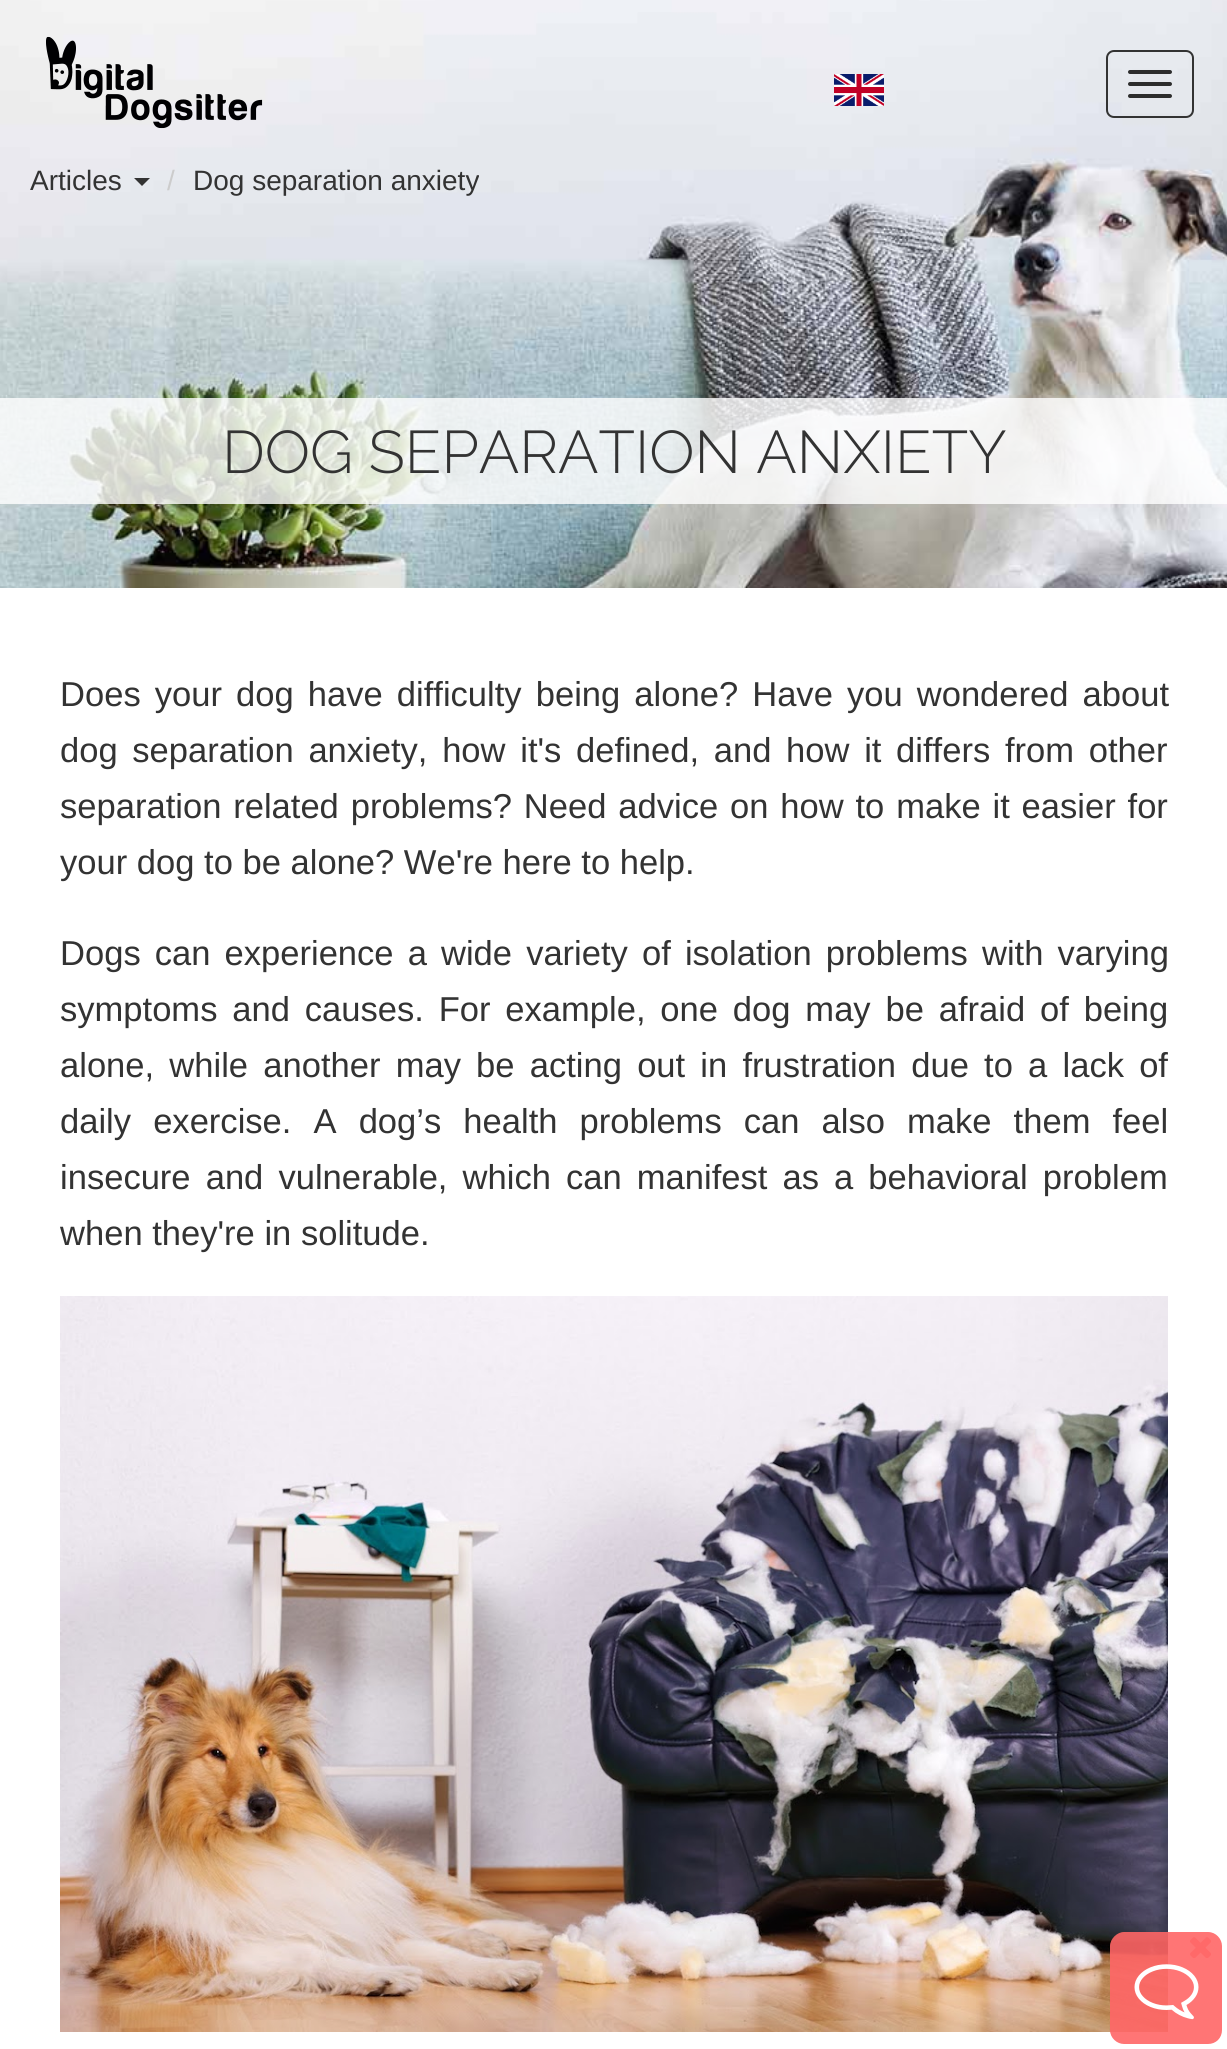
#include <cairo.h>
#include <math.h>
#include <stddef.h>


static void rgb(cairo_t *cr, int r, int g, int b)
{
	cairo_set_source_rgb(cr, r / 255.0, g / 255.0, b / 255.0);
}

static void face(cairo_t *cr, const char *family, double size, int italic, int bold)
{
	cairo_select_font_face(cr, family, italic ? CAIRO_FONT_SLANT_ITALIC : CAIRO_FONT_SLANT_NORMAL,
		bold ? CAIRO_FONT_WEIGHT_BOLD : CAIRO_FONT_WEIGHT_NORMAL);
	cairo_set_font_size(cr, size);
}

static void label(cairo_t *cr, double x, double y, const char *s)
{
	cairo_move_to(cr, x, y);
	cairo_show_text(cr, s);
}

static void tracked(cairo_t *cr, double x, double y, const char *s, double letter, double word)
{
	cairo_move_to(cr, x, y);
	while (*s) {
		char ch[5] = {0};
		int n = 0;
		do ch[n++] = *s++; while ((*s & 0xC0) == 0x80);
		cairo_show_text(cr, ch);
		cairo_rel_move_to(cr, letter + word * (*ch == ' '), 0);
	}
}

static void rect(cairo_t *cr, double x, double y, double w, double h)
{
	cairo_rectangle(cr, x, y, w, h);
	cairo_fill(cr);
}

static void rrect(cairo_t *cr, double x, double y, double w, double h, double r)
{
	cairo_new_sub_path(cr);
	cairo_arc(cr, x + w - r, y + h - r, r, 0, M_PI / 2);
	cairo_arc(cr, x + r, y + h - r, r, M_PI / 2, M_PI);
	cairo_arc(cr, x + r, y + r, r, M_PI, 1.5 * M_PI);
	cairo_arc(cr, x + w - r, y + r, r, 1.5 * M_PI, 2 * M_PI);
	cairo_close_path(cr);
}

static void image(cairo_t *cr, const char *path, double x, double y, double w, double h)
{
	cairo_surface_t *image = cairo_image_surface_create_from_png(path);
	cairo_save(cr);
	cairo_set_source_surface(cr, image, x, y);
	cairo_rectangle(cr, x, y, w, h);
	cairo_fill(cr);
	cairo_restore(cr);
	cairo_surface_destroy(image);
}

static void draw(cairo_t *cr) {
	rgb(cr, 255, 255, 255);
	cairo_paint(cr);
	image(cr, "image2.png", 0, 0, 1227, 588);
	image(cr, "image0.png", 46, 36, 217, 93);
	image(cr, "image1.png", 834, 74, 50, 32);
	rrect(cr, 1107, 51, 86, 66, 7);
	rgb(cr, 51, 51, 51);
	cairo_stroke(cr);
	rgb(cr, 45, 45, 45);
	rrect(cr, 1128, 70, 44, 4, 2);
	cairo_fill(cr);
	rrect(cr, 1128, 82, 44, 4, 2);
	cairo_fill(cr);
	rrect(cr, 1128, 94, 44, 4, 2);
	cairo_fill(cr);
	face(cr, "Liberation Sans", 28, 0, 0);
	rgb(cr, 51, 51, 51);
	label(cr, 30, 190, "Articles");
	cairo_new_path(cr);
	cairo_move_to(cr, 134, 178);
	cairo_line_to(cr, 150, 178);
	cairo_line_to(cr, 142, 186);
	cairo_close_path(cr);
	cairo_fill(cr);
	rgb(cr, 204, 204, 204);
	label(cr, 167, 190, "/");
	rgb(cr, 51, 51, 51);
	label(cr, 193, 190, "Dog separation anxiety");
	cairo_set_source_rgba(cr, 1, 1, 1, 0.8);
	rect(cr, 0, 398, 1227, 106);
	face(cr, "Raleway Light", 60, 0, 0);
	rgb(cr, 51, 51, 51);
	label(cr, 222, 473, "DOG SEPARATION ANXIETY");
	face(cr, "Liberation Sans", 34.55, 0, 0);
	tracked(cr, 60, 706, "Does your dog have difficulty being alone? Have you wondered about", 0, 4.5);
	tracked(cr, 60, 762, "dog separation anxiety, how it's defined, and how it differs from other", 0, 5.1);
	tracked(cr, 60, 818, "separation related problems? Need advice on how to make it easier for", 0, 2.25);
	label(cr, 60, 874, "your dog to be alone? We're here to help.");
	tracked(cr, 60, 965, "Dogs can experience a wide variety of isolation problems with varying", 0, 4.5);
	tracked(cr, 60, 1021, "symptoms and causes. For example, one dog may be afraid of being", 0, 5.25);
	tracked(cr, 60, 1077, "alone, while another may be acting out in frustration due to a lack of", 0, 5.6);
	tracked(cr, 60, 1133, "daily exercise. A dog’s health problems can also make them feel", 0, 12.5);
	tracked(cr, 60, 1189, "insecure and vulnerable, which can manifest as a behavioral problem", 0, 5.5);
	label(cr, 60, 1245, "when they're in solitude.");
	image(cr, "image3.png", 60, 1296, 1108, 736);
	cairo_set_source_rgba(cr, 1, 0.4, 0.4, 0.9);
	cairo_new_path(cr);
	cairo_move_to(cr, 1208, 1932);
	cairo_line_to(cr, 1124, 1932);
	cairo_curve_to(cr, 1117, 1932, 1110, 1939, 1110, 1946);
	cairo_line_to(cr, 1110, 2030);
	cairo_curve_to(cr, 1110, 2038, 1117, 2044, 1124, 2044);
	cairo_line_to(cr, 1208, 2044);
	cairo_curve_to(cr, 1216, 2044, 1222, 2038, 1222, 2030);
	cairo_line_to(cr, 1222, 1946);
	cairo_curve_to(cr, 1222, 1939, 1216, 1932, 1208, 1932);
	cairo_close_path(cr);
	cairo_fill(cr);
	image(cr, "image4.png", 1134, 1964, 65, 56);
	image(cr, "image5.png", 1190, 1937, 21, 21);
}

int main(void) {
	cairo_surface_t *surface = cairo_image_surface_create(CAIRO_FORMAT_RGB24, 1227, 2049);
	cairo_t *cr = cairo_create(surface);
	cairo_font_options_t *options = cairo_font_options_create();
	cairo_font_options_set_hint_metrics(options, CAIRO_HINT_METRICS_OFF);
	cairo_font_options_set_hint_style(options, CAIRO_HINT_STYLE_NONE);
	cairo_set_font_options(cr, options);
	cairo_set_miter_limit(cr, 4);
	draw(cr);
	cairo_surface_write_to_png(surface, "render.png");
	cairo_font_options_destroy(options);
	cairo_destroy(cr);
	cairo_surface_destroy(surface);
	return 0;
}
